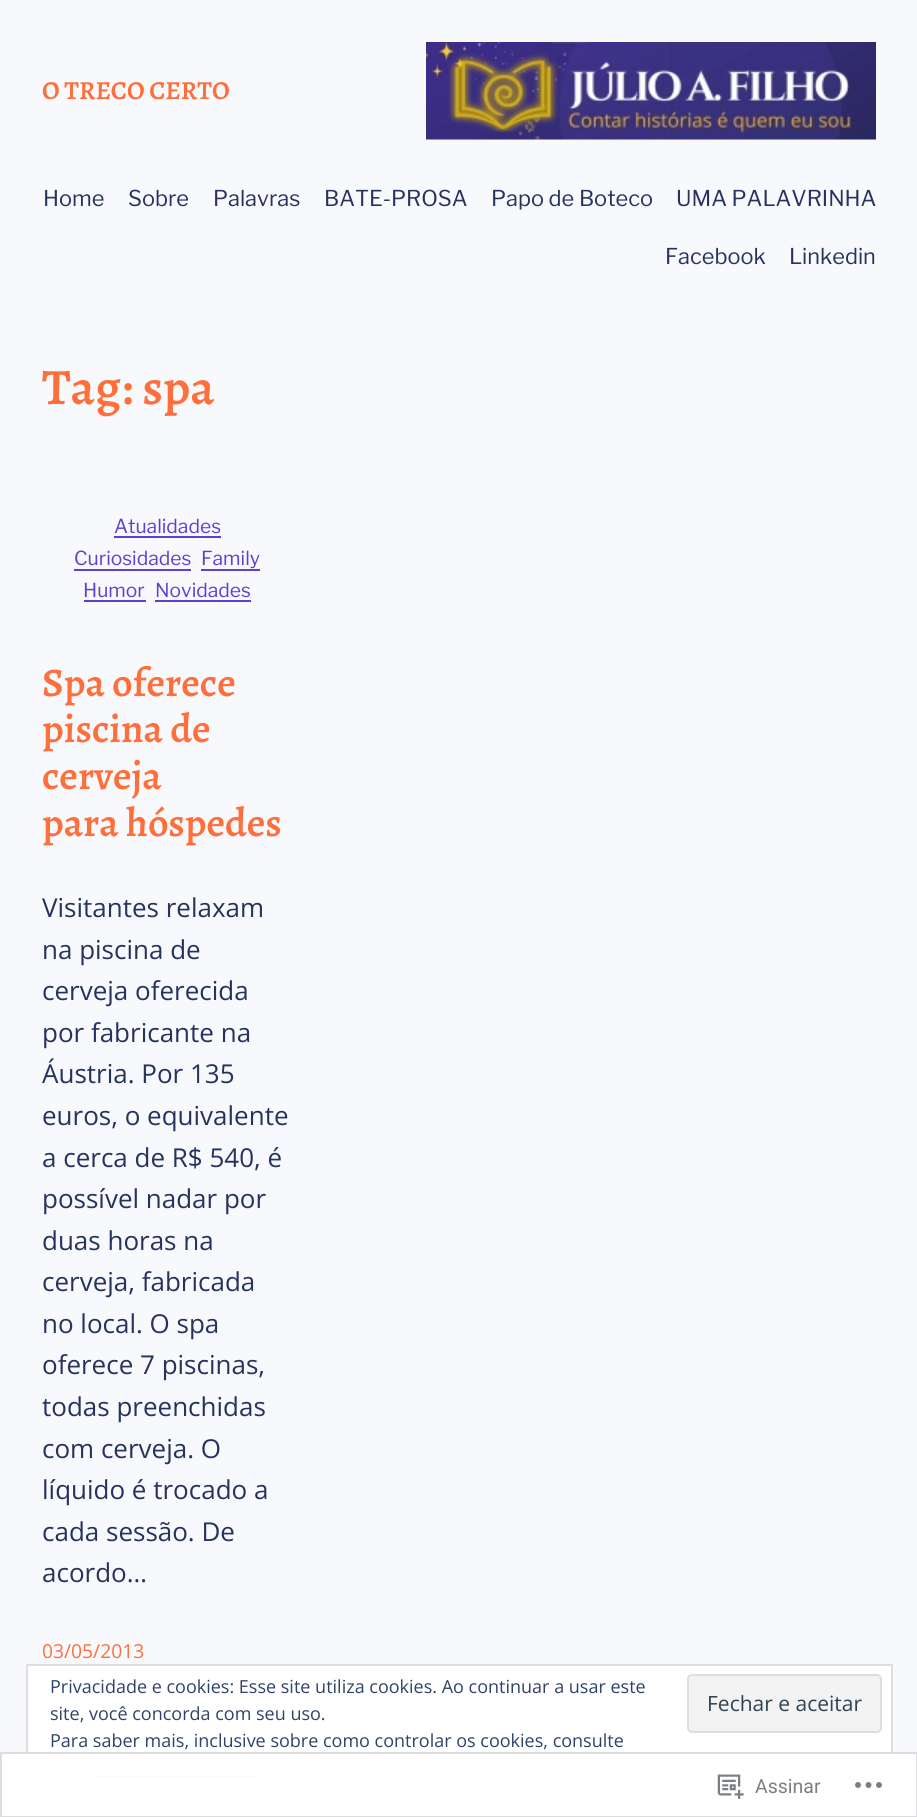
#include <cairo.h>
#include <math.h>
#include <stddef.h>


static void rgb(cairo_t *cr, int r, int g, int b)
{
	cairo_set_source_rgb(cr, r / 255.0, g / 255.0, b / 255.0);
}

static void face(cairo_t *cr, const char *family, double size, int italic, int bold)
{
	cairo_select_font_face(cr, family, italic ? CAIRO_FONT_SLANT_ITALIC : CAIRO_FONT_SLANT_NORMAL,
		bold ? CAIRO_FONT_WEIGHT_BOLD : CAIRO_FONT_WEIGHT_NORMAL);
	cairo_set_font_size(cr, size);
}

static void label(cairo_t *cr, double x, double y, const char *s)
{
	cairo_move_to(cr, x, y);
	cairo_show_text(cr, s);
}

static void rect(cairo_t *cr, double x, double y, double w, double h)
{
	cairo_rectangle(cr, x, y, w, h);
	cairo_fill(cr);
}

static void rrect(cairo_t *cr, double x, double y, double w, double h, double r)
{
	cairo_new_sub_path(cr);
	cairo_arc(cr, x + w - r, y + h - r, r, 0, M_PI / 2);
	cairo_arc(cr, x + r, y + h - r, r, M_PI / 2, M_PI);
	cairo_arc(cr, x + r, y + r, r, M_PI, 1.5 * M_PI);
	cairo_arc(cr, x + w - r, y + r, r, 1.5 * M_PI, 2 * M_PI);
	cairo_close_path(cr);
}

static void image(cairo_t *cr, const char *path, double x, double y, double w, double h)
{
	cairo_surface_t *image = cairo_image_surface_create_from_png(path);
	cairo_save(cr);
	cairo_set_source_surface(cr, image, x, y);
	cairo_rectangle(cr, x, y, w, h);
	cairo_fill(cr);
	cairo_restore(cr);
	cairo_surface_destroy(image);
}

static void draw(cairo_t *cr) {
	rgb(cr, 247, 249, 253);
	cairo_paint(cr);
	face(cr, "Alegreya SemiBold", 26, 0, 0);
	rgb(cr, 255, 111, 60);
	label(cr, 42, 99, "O TRECO CERTO");
	image(cr, "image0.png", 426, 42, 450, 98);
	face(cr, "Libre Franklin", 21.75, 0, 0);
	rgb(cr, 38, 51, 93);
	label(cr, 43, 206, "Home");
	label(cr, 128, 206, "Sobre");
	label(cr, 213, 206, "Palavras");
	label(cr, 324, 206, "BATE-PROSA");
	label(cr, 491, 206, "Papo de Boteco");
	label(cr, 676, 206, "UMA PALAVRINHA");
	label(cr, 665, 264, "Facebook");
	label(cr, 789, 264, "Linkedin");
	face(cr, "Alegreya SemiBold", 51, 0, 0);
	rgb(cr, 255, 111, 60);
	label(cr, 42, 404, "Tag: spa");
	face(cr, "Libre Franklin", 19.25, 0, 0);
	rgb(cr, 93, 63, 211);
	label(cr, 114, 533, "Atualidades");
	rect(cr, 114, 536, 107, 2);
	label(cr, 74, 565, "Curiosidades");
	rect(cr, 74, 569, 117, 2);
	label(cr, 201, 565, "Family");
	rect(cr, 201, 569, 59, 2);
	label(cr, 83, 597, "Humor");
	rect(cr, 84, 600, 62, 2);
	label(cr, 155, 597, "Novidades");
	rect(cr, 155, 600, 96, 2);
	face(cr, "Alegreya SemiBold", 40.5, 0, 0);
	rgb(cr, 255, 111, 60);
	label(cr, 42, 696, "Spa oferece");
	label(cr, 42, 742, "piscina de");
	label(cr, 42, 789, "cerveja");
	label(cr, 42, 836, "para hóspedes");
	face(cr, "Open Sans", 26, 0, 0);
	rgb(cr, 38, 51, 93);
	label(cr, 42, 917, "Visitantes relaxam");
	label(cr, 42, 959, "na piscina de");
	label(cr, 42, 1000, "cerveja oferecida");
	label(cr, 42, 1042, "por fabricante na");
	label(cr, 42, 1083, "Áustria. Por 135");
	label(cr, 42, 1125, "euros, o equivalente");
	label(cr, 42, 1167, "a cerca de R$ 540, é");
	label(cr, 42, 1208, "possível nadar por");
	label(cr, 42, 1250, "duas horas na");
	label(cr, 42, 1291, "cerveja, fabricada");
	label(cr, 42, 1333, "no local. O spa");
	label(cr, 42, 1374, "oferece 7 piscinas,");
	label(cr, 42, 1416, "todas preenchidas");
	label(cr, 42, 1458, "com cerveja. O");
	label(cr, 42, 1499, "líquido é trocado a");
	label(cr, 42, 1541, "cada sessão. De");
	label(cr, 42, 1582, "acordo…");
	face(cr, "Open Sans", 19.25, 0, 0);
	rgb(cr, 255, 111, 60);
	label(cr, 42, 1658, "03/05/2013");
	rgb(cr, 255, 255, 255);
	cairo_rectangle(cr, 27, 1665, 865, 127);
	cairo_fill_preserve(cr);
	rgb(cr, 222, 222, 222);
	cairo_stroke(cr);
	face(cr, "Open Sans", 18, 0, 0);
	rgb(cr, 46, 68, 103);
	label(cr, 50, 1693, "Privacidade e cookies: Esse site utiliza cookies. Ao continuar a usar este");
	rgb(cr, 243, 243, 243);
	rrect(cr, 688, 1675, 193, 57, 4);
	cairo_fill_preserve(cr);
	rgb(cr, 222, 222, 222);
	cairo_stroke(cr);
	face(cr, "Open Sans", 21, 0, 0);
	rgb(cr, 46, 68, 83);
	label(cr, 707, 1711, "Fechar e aceitar");
	face(cr, "Open Sans", 18, 0, 0);
	rgb(cr, 46, 68, 103);
	label(cr, 50, 1720, "site, você concorda com seu uso.");
	label(cr, 50, 1747, "Para saber mais, inclusive sobre como controlar os cookies, consulte");
	rect(cr, 96, 1776, 158, 2);
	cairo_set_source_rgba(cr, 1, 1, 1, 0.98);
	cairo_rectangle(cr, 1, 1753, 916, 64);
	cairo_fill_preserve(cr);
	rgb(cr, 221, 221, 223);
	cairo_stroke(cr);
	image(cr, "image1.png", 717, 1774, 27, 25);
	face(cr, "Roboto", 19.5, 0, 0);
	rgb(cr, 123, 127, 132);
	label(cr, 755, 1793, "Assinar");
	image(cr, "image2.png", 855, 1782, 27, 6);
}

int main(void) {
	cairo_surface_t *surface = cairo_image_surface_create(CAIRO_FORMAT_RGB24, 917, 1817);
	cairo_t *cr = cairo_create(surface);
	cairo_font_options_t *options = cairo_font_options_create();
	cairo_font_options_set_hint_metrics(options, CAIRO_HINT_METRICS_OFF);
	cairo_font_options_set_hint_style(options, CAIRO_HINT_STYLE_NONE);
	cairo_set_font_options(cr, options);
	cairo_set_miter_limit(cr, 4);
	draw(cr);
	cairo_surface_write_to_png(surface, "render.png");
	cairo_font_options_destroy(options);
	cairo_destroy(cr);
	cairo_surface_destroy(surface);
	return 0;
}
